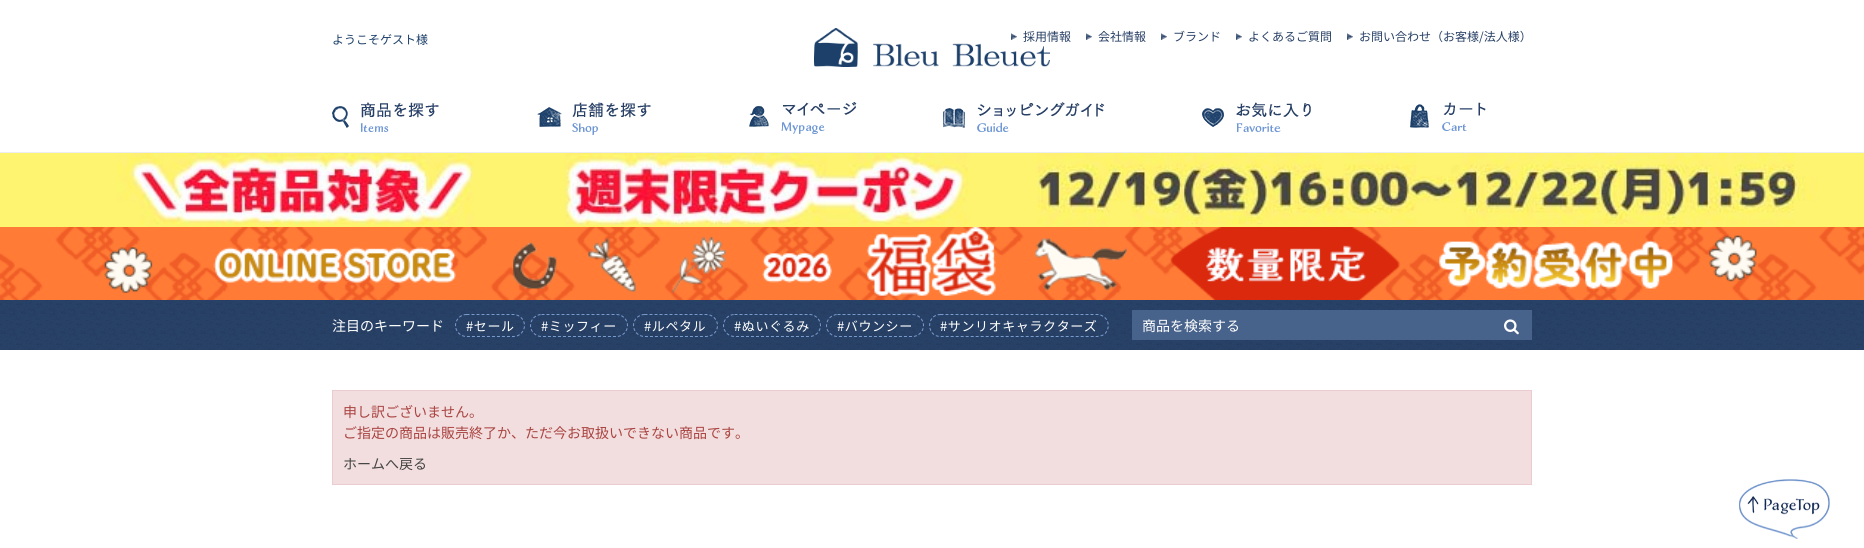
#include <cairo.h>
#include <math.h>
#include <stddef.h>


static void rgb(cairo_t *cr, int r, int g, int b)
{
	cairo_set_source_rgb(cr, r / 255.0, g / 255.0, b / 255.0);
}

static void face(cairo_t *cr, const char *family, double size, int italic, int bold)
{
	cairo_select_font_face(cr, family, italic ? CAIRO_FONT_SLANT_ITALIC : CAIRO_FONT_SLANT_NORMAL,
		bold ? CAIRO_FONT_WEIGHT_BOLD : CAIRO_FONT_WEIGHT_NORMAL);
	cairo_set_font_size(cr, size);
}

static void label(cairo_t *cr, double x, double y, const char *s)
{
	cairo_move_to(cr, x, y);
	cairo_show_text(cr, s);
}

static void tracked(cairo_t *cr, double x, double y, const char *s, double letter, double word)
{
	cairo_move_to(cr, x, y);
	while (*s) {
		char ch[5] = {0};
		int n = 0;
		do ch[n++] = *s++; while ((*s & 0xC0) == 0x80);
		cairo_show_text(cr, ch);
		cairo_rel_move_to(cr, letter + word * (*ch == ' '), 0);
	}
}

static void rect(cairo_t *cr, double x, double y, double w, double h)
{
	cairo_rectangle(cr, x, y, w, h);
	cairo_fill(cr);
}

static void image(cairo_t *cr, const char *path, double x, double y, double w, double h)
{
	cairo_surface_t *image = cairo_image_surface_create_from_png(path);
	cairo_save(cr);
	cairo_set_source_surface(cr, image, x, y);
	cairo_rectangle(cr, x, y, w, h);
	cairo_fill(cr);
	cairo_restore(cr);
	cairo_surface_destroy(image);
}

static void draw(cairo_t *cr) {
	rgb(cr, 255, 255, 255);
	cairo_paint(cr);
	face(cr, "Noto Sans JP", 12, 0, 0);
	rgb(cr, 28, 64, 106);
	label(cr, 332, 44, "ようこそゲスト様");
	image(cr, "image0.png", 814, 28, 236, 39);
	image(cr, "image1.png", 1011, 33, 6, 7);
	rgb(cr, 40, 64, 102);
	label(cr, 1023, 41, "採用情報");
	image(cr, "image1.png", 1086, 33, 6, 7);
	label(cr, 1098, 41, "会社情報");
	image(cr, "image1.png", 1161, 33, 6, 7);
	label(cr, 1173, 41, "ブランド");
	image(cr, "image1.png", 1236, 33, 6, 7);
	label(cr, 1248, 41, "よくあるご質問");
	image(cr, "image1.png", 1347, 33, 6, 7);
	label(cr, 1359, 41, "お問い合わせ（お客様/法人様）");
	rgb(cr, 235, 237, 241);
	rect(cr, 0, 152, 1864, 1);
	image(cr, "image2.png", 332, 102, 107, 30);
	image(cr, "image3.png", 537, 102, 114, 33);
	image(cr, "image4.png", 749, 102, 108, 32);
	image(cr, "image5.png", 943, 102, 162, 30);
	image(cr, "image6.png", 1202, 102, 109, 31);
	image(cr, "image7.png", 1410, 102, 76, 29);
	image(cr, "image8.png", 0, 153, 1864, 74);
	image(cr, "image9.png", 0, 227, 1864, 73);
	image(cr, "image10.png", 0, 300, 1864, 50);
	face(cr, "Noto Sans JP", 14, 0, 0);
	rgb(cr, 255, 255, 255);
	label(cr, 332, 331, "注目のキーワード");
	cairo_new_path(cr);
	cairo_move_to(cr, 466.5, 314.5);
	cairo_line_to(cr, 513.5, 314.5);
	cairo_curve_to(cr, 519.5, 314.5, 524.5, 319.5, 524.5, 325.5);
	cairo_curve_to(cr, 524.5, 331.5, 519.5, 336.5, 513.5, 336.5);
	cairo_line_to(cr, 466.5, 336.5);
	cairo_curve_to(cr, 460.5, 336.5, 455.5, 331.5, 455.5, 325.5);
	cairo_curve_to(cr, 455.5, 319.5, 460.5, 314.5, 466.5, 314.5);
	cairo_close_path(cr);
	rgb(cr, 120, 154, 206);
	cairo_set_line_width(cr, 1);
	cairo_set_dash(cr, (double[]){3, 2}, 2, 0);
	cairo_stroke(cr);
	face(cr, "Noto Sans JP", 13, 0, 0);
	rgb(cr, 255, 255, 255);
	tracked(cr, 466, 331, "#セール", 0.6, 0);
	cairo_new_path(cr);
	cairo_move_to(cr, 541.5, 314.5);
	cairo_line_to(cr, 616.5, 314.5);
	cairo_curve_to(cr, 622.5, 314.5, 627.5, 319.5, 627.5, 325.5);
	cairo_curve_to(cr, 627.5, 331.5, 622.5, 336.5, 616.5, 336.5);
	cairo_line_to(cr, 541.5, 336.5);
	cairo_curve_to(cr, 535.5, 336.5, 530.5, 331.5, 530.5, 325.5);
	cairo_curve_to(cr, 530.5, 319.5, 535.5, 314.5, 541.5, 314.5);
	cairo_close_path(cr);
	rgb(cr, 120, 154, 206);
	cairo_stroke(cr);
	rgb(cr, 255, 255, 255);
	tracked(cr, 541, 331, "#ミッフィー", 0.6, 0);
	cairo_new_path(cr);
	cairo_move_to(cr, 644.5, 314.5);
	cairo_line_to(cr, 706.5, 314.5);
	cairo_curve_to(cr, 712.5, 314.5, 717.5, 319.5, 717.5, 325.5);
	cairo_curve_to(cr, 717.5, 331.5, 712.5, 336.5, 706.5, 336.5);
	cairo_line_to(cr, 644.5, 336.5);
	cairo_curve_to(cr, 638.5, 336.5, 633.5, 331.5, 633.5, 325.5);
	cairo_curve_to(cr, 633.5, 319.5, 638.5, 314.5, 644.5, 314.5);
	cairo_close_path(cr);
	rgb(cr, 120, 154, 206);
	cairo_stroke(cr);
	rgb(cr, 255, 255, 255);
	tracked(cr, 644, 331, "#ルペタル", 0.6, 0);
	cairo_new_path(cr);
	cairo_move_to(cr, 734.5, 314.5);
	cairo_line_to(cr, 809.5, 314.5);
	cairo_curve_to(cr, 815.5, 314.5, 820.5, 319.5, 820.5, 325.5);
	cairo_curve_to(cr, 820.5, 331.5, 815.5, 336.5, 809.5, 336.5);
	cairo_line_to(cr, 734.5, 336.5);
	cairo_curve_to(cr, 728.5, 336.5, 723.5, 331.5, 723.5, 325.5);
	cairo_curve_to(cr, 723.5, 319.5, 728.5, 314.5, 734.5, 314.5);
	cairo_close_path(cr);
	rgb(cr, 120, 154, 206);
	cairo_stroke(cr);
	rgb(cr, 255, 255, 255);
	tracked(cr, 734, 331, "#ぬいぐるみ", 0.6, 0);
	cairo_new_path(cr);
	cairo_move_to(cr, 837.5, 314.5);
	cairo_line_to(cr, 912.5, 314.5);
	cairo_curve_to(cr, 918.5, 314.5, 923.5, 319.5, 923.5, 325.5);
	cairo_curve_to(cr, 923.5, 331.5, 918.5, 336.5, 912.5, 336.5);
	cairo_line_to(cr, 837.5, 336.5);
	cairo_curve_to(cr, 831.5, 336.5, 826.5, 331.5, 826.5, 325.5);
	cairo_curve_to(cr, 826.5, 319.5, 831.5, 314.5, 837.5, 314.5);
	cairo_close_path(cr);
	rgb(cr, 120, 154, 206);
	cairo_stroke(cr);
	rgb(cr, 255, 255, 255);
	tracked(cr, 837, 331, "#バウンシー", 0.6, 0);
	cairo_new_path(cr);
	cairo_move_to(cr, 940.5, 314.5);
	cairo_line_to(cr, 1099.5, 314.5);
	cairo_line_to(cr, 1103.5, 316.5);
	cairo_curve_to(cr, 1110.5, 321, 1109.5, 332.5, 1102, 335.5);
	cairo_line_to(cr, 1097.5, 336.5);
	cairo_line_to(cr, 940.5, 336.5);
	cairo_curve_to(cr, 926, 336.5, 926, 314.5, 940.5, 314.5);
	cairo_close_path(cr);
	rgb(cr, 120, 154, 206);
	cairo_stroke(cr);
	rgb(cr, 255, 255, 255);
	tracked(cr, 940, 331, "#サンリオキャラクターズ", 0.6, 0);
	rgb(cr, 71, 98, 139);
	rect(cr, 1132, 310, 400, 30);
	face(cr, "Noto Sans JP", 14, 0, 0);
	rgb(cr, 255, 255, 255);
	label(cr, 1142, 331, "商品を検索する");
	image(cr, "image11.png", 1504, 319, 15, 16);
	rgb(cr, 242, 222, 222);
	cairo_rectangle(cr, 332.5, 390.5, 1199, 94);
	cairo_fill_preserve(cr);
	rgb(cr, 235, 204, 209);
	cairo_set_dash(cr, NULL, 0, 0);
	cairo_stroke(cr);
	rgb(cr, 169, 68, 66);
	label(cr, 343, 417, "申し訳ございません。");
	label(cr, 343, 438, "ご指定の商品は販売終了か、ただ今お取扱いできない商品です。");
	rgb(cr, 68, 68, 68);
	label(cr, 343, 469, "ホームへ戻る");
	image(cr, "image12.png", 1739, 479, 91, 60);
}

int main(void) {
	cairo_surface_t *surface = cairo_image_surface_create(CAIRO_FORMAT_RGB24, 1864, 548);
	cairo_t *cr = cairo_create(surface);
	cairo_font_options_t *options = cairo_font_options_create();
	cairo_font_options_set_hint_metrics(options, CAIRO_HINT_METRICS_OFF);
	cairo_font_options_set_hint_style(options, CAIRO_HINT_STYLE_NONE);
	cairo_set_font_options(cr, options);
	cairo_set_miter_limit(cr, 4);
	draw(cr);
	cairo_surface_write_to_png(surface, "render.png");
	cairo_font_options_destroy(options);
	cairo_destroy(cr);
	cairo_surface_destroy(surface);
	return 0;
}
